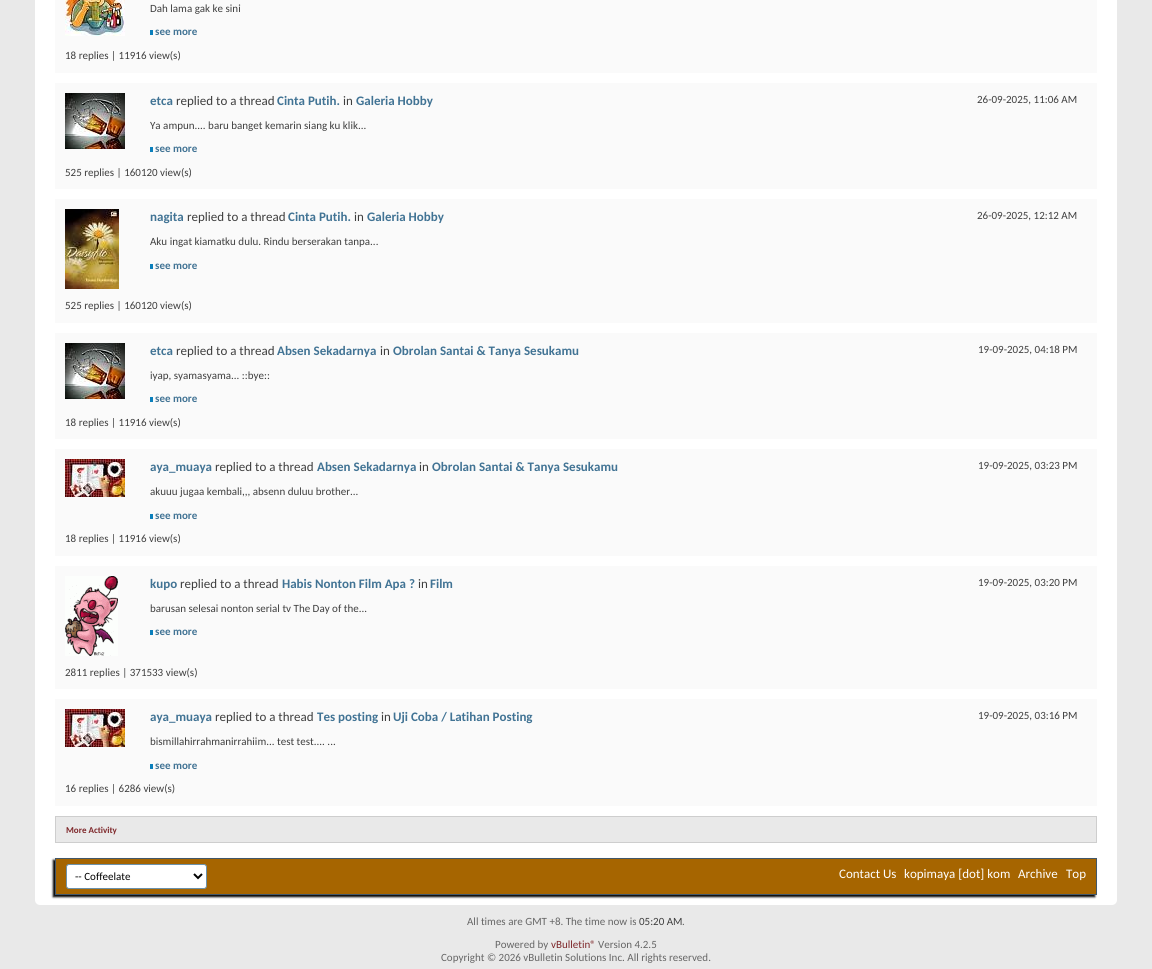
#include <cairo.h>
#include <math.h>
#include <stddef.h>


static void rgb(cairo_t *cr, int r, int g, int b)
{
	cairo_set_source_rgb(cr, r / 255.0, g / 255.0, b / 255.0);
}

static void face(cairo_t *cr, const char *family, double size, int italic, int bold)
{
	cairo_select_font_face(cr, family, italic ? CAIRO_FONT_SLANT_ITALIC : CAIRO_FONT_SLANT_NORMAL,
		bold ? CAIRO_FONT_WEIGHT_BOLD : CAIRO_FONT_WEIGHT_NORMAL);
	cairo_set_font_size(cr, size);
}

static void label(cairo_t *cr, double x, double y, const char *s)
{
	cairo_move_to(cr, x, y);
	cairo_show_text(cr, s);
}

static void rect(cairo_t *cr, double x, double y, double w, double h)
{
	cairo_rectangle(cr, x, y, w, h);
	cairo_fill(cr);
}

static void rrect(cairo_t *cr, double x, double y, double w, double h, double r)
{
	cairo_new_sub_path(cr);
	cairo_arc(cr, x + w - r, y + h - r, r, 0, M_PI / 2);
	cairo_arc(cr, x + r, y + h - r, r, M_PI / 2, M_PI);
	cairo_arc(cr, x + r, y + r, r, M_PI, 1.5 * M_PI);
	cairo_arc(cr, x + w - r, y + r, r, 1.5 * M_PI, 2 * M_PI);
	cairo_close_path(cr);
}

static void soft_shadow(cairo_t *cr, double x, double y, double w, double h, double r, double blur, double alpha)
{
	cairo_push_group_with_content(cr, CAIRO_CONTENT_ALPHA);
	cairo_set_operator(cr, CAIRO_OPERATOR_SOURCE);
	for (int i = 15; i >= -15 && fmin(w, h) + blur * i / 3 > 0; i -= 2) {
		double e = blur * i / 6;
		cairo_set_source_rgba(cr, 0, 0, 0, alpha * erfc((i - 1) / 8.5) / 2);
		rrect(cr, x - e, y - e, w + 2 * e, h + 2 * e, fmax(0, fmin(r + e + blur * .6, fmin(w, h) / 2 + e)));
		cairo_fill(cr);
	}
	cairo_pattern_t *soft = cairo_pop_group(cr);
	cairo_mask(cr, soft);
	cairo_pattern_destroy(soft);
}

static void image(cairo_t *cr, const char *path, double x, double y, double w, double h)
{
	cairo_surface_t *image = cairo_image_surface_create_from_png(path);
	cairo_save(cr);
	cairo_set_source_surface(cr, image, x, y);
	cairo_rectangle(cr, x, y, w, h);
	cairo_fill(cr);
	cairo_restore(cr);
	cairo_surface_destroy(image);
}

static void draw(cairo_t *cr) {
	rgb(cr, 233, 233, 233);
	cairo_paint(cr);
	rgb(cr, 255, 255, 255);
	rrect(cr, 35, -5, 1082, 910, 5);
	cairo_fill(cr);
	rgb(cr, 250, 250, 250);
	rect(cr, 55, 0, 1042, 73);
	image(cr, "image0.png", 65, 0, 60, 36);
	face(cr, "Carlito", 11, 0, 0);
	rgb(cr, 62, 62, 62);
	label(cr, 150, 12, "Dah lama gak ke sini");
	rgb(cr, 10, 127, 188);
	rect(cr, 150, 30, 3, 5);
	face(cr, "Carlito", 11, 0, 1);
	rgb(cr, 65, 115, 148);
	label(cr, 155, 35, "see more");
	face(cr, "Carlito", 11, 0, 0);
	rgb(cr, 62, 62, 62);
	label(cr, 65, 59, "18 replies | 11916 view(s)");
	rgb(cr, 250, 250, 250);
	rect(cr, 55, 83, 1042, 106);
	image(cr, "image1.png", 65, 93, 60, 56);
	face(cr, "Carlito", 13, 0, 1);
	rgb(cr, 65, 115, 148);
	label(cr, 150, 105, "etca");
	face(cr, "Carlito", 13, 0, 0);
	rgb(cr, 62, 62, 62);
	label(cr, 176, 105, "replied to a thread");
	face(cr, "Carlito", 13, 0, 1);
	rgb(cr, 65, 115, 148);
	label(cr, 277, 105, "Cinta Putih.");
	face(cr, "Carlito", 13, 0, 0);
	rgb(cr, 62, 62, 62);
	label(cr, 343, 105, "in");
	face(cr, "Carlito", 13, 0, 1);
	rgb(cr, 65, 115, 148);
	label(cr, 356, 105, "Galeria Hobby");
	face(cr, "Carlito", 11, 0, 0);
	rgb(cr, 62, 62, 62);
	label(cr, 977, 103, "26-09-2025, 11:06 AM");
	label(cr, 150, 129, "Ya ampun.... baru banget kemarin siang ku klik...");
	rgb(cr, 10, 127, 188);
	rect(cr, 150, 147, 3, 5);
	face(cr, "Carlito", 11, 0, 1);
	rgb(cr, 65, 115, 148);
	label(cr, 155, 152, "see more");
	face(cr, "Carlito", 11, 0, 0);
	rgb(cr, 62, 62, 62);
	label(cr, 65, 176, "525 replies | 160120 view(s)");
	rgb(cr, 250, 250, 250);
	rect(cr, 55, 199, 1042, 124);
	image(cr, "image2.png", 65, 209, 54, 80);
	face(cr, "Carlito", 13, 0, 1);
	rgb(cr, 65, 115, 148);
	label(cr, 150, 221, "nagita");
	face(cr, "Carlito", 13, 0, 0);
	rgb(cr, 62, 62, 62);
	label(cr, 187, 221, "replied to a thread");
	face(cr, "Carlito", 13, 0, 1);
	rgb(cr, 65, 115, 148);
	label(cr, 288, 221, "Cinta Putih.");
	face(cr, "Carlito", 13, 0, 0);
	rgb(cr, 62, 62, 62);
	label(cr, 354, 221, "in");
	face(cr, "Carlito", 13, 0, 1);
	rgb(cr, 65, 115, 148);
	label(cr, 367, 221, "Galeria Hobby");
	face(cr, "Carlito", 11, 0, 0);
	rgb(cr, 62, 62, 62);
	label(cr, 977, 219, "26-09-2025, 12:12 AM");
	label(cr, 150, 245, "Aku ingat kiamatku dulu. Rindu berserakan tanpa...");
	rgb(cr, 10, 127, 188);
	rect(cr, 150, 264, 3, 5);
	face(cr, "Carlito", 11, 0, 1);
	rgb(cr, 65, 115, 148);
	label(cr, 155, 269, "see more");
	face(cr, "Carlito", 11, 0, 0);
	rgb(cr, 62, 62, 62);
	label(cr, 65, 309, "525 replies | 160120 view(s)");
	rgb(cr, 250, 250, 250);
	rect(cr, 55, 333, 1042, 106);
	image(cr, "image1.png", 65, 343, 60, 56);
	face(cr, "Carlito", 13, 0, 1);
	rgb(cr, 65, 115, 148);
	label(cr, 150, 355, "etca");
	face(cr, "Carlito", 13, 0, 0);
	rgb(cr, 62, 62, 62);
	label(cr, 176, 355, "replied to a thread");
	face(cr, "Carlito", 13, 0, 1);
	rgb(cr, 65, 115, 148);
	label(cr, 277, 355, "Absen Sekadarnya");
	face(cr, "Carlito", 13, 0, 0);
	rgb(cr, 62, 62, 62);
	label(cr, 380, 355, "in");
	face(cr, "Carlito", 13, 0, 1);
	rgb(cr, 65, 115, 148);
	label(cr, 393, 355, "Obrolan Santai & Tanya Sesukamu");
	face(cr, "Carlito", 11, 0, 0);
	rgb(cr, 62, 62, 62);
	label(cr, 978, 353, "19-09-2025, 04:18 PM");
	label(cr, 150, 379, "iyap, syamasyama... ::bye::");
	rgb(cr, 10, 127, 188);
	rect(cr, 150, 397, 3, 5);
	face(cr, "Carlito", 11, 0, 1);
	rgb(cr, 65, 115, 148);
	label(cr, 155, 402, "see more");
	face(cr, "Carlito", 11, 0, 0);
	rgb(cr, 62, 62, 62);
	label(cr, 65, 426, "18 replies | 11916 view(s)");
	rgb(cr, 250, 250, 250);
	rect(cr, 55, 449, 1042, 107);
	image(cr, "image3.png", 65, 459, 60, 38);
	face(cr, "Carlito", 13, 0, 1);
	rgb(cr, 65, 115, 148);
	label(cr, 150, 471, "aya_muaya");
	face(cr, "Carlito", 13, 0, 0);
	rgb(cr, 62, 62, 62);
	label(cr, 215, 471, "replied to a thread");
	face(cr, "Carlito", 13, 0, 1);
	rgb(cr, 65, 115, 148);
	label(cr, 317, 471, "Absen Sekadarnya");
	face(cr, "Carlito", 13, 0, 0);
	rgb(cr, 62, 62, 62);
	label(cr, 419, 471, "in");
	face(cr, "Carlito", 13, 0, 1);
	rgb(cr, 65, 115, 148);
	label(cr, 432, 471, "Obrolan Santai & Tanya Sesukamu");
	face(cr, "Carlito", 11, 0, 0);
	rgb(cr, 62, 62, 62);
	label(cr, 978, 469, "19-09-2025, 03:23 PM");
	label(cr, 150, 495, "akuuu jugaa kembali,,, absenn duluu brother...");
	rgb(cr, 10, 127, 188);
	rect(cr, 150, 514, 3, 5);
	face(cr, "Carlito", 11, 0, 1);
	rgb(cr, 65, 115, 148);
	label(cr, 155, 519, "see more");
	face(cr, "Carlito", 11, 0, 0);
	rgb(cr, 62, 62, 62);
	label(cr, 65, 542, "18 replies | 11916 view(s)");
	rgb(cr, 250, 250, 250);
	rect(cr, 55, 566, 1042, 123);
	image(cr, "image4.png", 65, 576, 53, 80);
	face(cr, "Carlito", 13, 0, 1);
	rgb(cr, 65, 115, 148);
	label(cr, 150, 588, "kupo");
	face(cr, "Carlito", 13, 0, 0);
	rgb(cr, 62, 62, 62);
	label(cr, 180, 588, "replied to a thread");
	face(cr, "Carlito", 13, 0, 1);
	rgb(cr, 65, 115, 148);
	label(cr, 282, 588, "Habis Nonton Film Apa ?");
	face(cr, "Carlito", 13, 0, 0);
	rgb(cr, 62, 62, 62);
	label(cr, 418, 588, "in");
	face(cr, "Carlito", 13, 0, 1);
	rgb(cr, 65, 115, 148);
	label(cr, 430, 588, "Film");
	face(cr, "Carlito", 11, 0, 0);
	rgb(cr, 62, 62, 62);
	label(cr, 978, 586, "19-09-2025, 03:20 PM");
	label(cr, 150, 612, "barusan selesai nonton serial tv The Day of the...");
	rgb(cr, 10, 127, 188);
	rect(cr, 150, 630, 3, 5);
	face(cr, "Carlito", 11, 0, 1);
	rgb(cr, 65, 115, 148);
	label(cr, 155, 635, "see more");
	face(cr, "Carlito", 11, 0, 0);
	rgb(cr, 62, 62, 62);
	label(cr, 65, 676, "2811 replies | 371533 view(s)");
	rgb(cr, 250, 250, 250);
	rect(cr, 55, 699, 1042, 107);
	image(cr, "image3.png", 65, 709, 60, 38);
	face(cr, "Carlito", 13, 0, 1);
	rgb(cr, 65, 115, 148);
	label(cr, 150, 721, "aya_muaya");
	face(cr, "Carlito", 13, 0, 0);
	rgb(cr, 62, 62, 62);
	label(cr, 215, 721, "replied to a thread");
	face(cr, "Carlito", 13, 0, 1);
	rgb(cr, 65, 115, 148);
	label(cr, 317, 721, "Tes posting");
	face(cr, "Carlito", 13, 0, 0);
	rgb(cr, 62, 62, 62);
	label(cr, 381, 721, "in");
	face(cr, "Carlito", 13, 0, 1);
	rgb(cr, 65, 115, 148);
	label(cr, 393, 721, "Uji Coba / Latihan Posting");
	face(cr, "Carlito", 11, 0, 0);
	rgb(cr, 62, 62, 62);
	label(cr, 978, 719, "19-09-2025, 03:16 PM");
	label(cr, 150, 745, "bismillahirrahmanirrahiim... test test.... ...");
	rgb(cr, 10, 127, 188);
	rect(cr, 150, 764, 3, 5);
	face(cr, "Carlito", 11, 0, 1);
	rgb(cr, 65, 115, 148);
	label(cr, 155, 769, "see more");
	face(cr, "Carlito", 11, 0, 0);
	rgb(cr, 62, 62, 62);
	label(cr, 65, 792, "16 replies | 6286 view(s)");
	rgb(cr, 233, 233, 233);
	cairo_rectangle(cr, 55.5, 816.5, 1041, 26);
	cairo_fill_preserve(cr);
	rgb(cr, 206, 206, 206);
	cairo_set_line_width(cr, 1);
	cairo_stroke(cr);
	face(cr, "Carlito", 9, 0, 1);
	rgb(cr, 126, 39, 42);
	label(cr, 66, 833, "More Activity");
	rgb(cr, 0, 0, 0);
	soft_shadow(cr, 53, 860, 1042, 37, 0, 1, 1);
	rgb(cr, 166, 101, 0);
	cairo_rectangle(cr, 55.5, 858.5, 1041, 36);
	cairo_fill_preserve(cr);
	rgb(cr, 66, 87, 105);
	cairo_stroke(cr);
	rgb(cr, 255, 255, 255);
	rrect(cr, 66.5, 864.5, 140, 24, 2.5);
	cairo_fill_preserve(cr);
	rgb(cr, 107, 145, 171);
	cairo_stroke(cr);
	cairo_new_path(cr);
	cairo_move_to(cr, 194, 874);
	cairo_line_to(cr, 198, 878);
	cairo_line_to(cr, 202, 874);
	rgb(cr, 0, 0, 0);
	cairo_set_line_width(cr, 2);
	cairo_stroke(cr);
	face(cr, "Carlito", 11, 0, 0);
	label(cr, 75, 880, "-- Coffeelate");
	face(cr, "Carlito", 13, 0, 0);
	rgb(cr, 255, 255, 255);
	label(cr, 839, 878, "Contact Us");
	label(cr, 904, 878, "kopimaya [dot] kom");
	label(cr, 1018, 878, "Archive");
	label(cr, 1066, 878, "Top");
	face(cr, "Carlito", 11, 0, 0);
	rgb(cr, 102, 102, 102);
	label(cr, 467, 925, "All times are GMT +8. The time now is");
	rgb(cr, 62, 62, 62);
	label(cr, 639, 925, "05:20 AM");
	rgb(cr, 102, 102, 102);
	label(cr, 682, 925, ".");
	label(cr, 495, 948, "Powered by");
	rgb(cr, 126, 39, 42);
	label(cr, 551, 948, "vBulletin®");
	rgb(cr, 102, 102, 102);
	label(cr, 598, 948, "Version 4.2.5");
	label(cr, 441, 961, "Copyright © 2026 vBulletin Solutions Inc. All rights reserved.");
}

int main(void) {
	cairo_surface_t *surface = cairo_image_surface_create(CAIRO_FORMAT_RGB24, 1152, 969);
	cairo_t *cr = cairo_create(surface);
	cairo_font_options_t *options = cairo_font_options_create();
	cairo_font_options_set_hint_metrics(options, CAIRO_HINT_METRICS_OFF);
	cairo_font_options_set_hint_style(options, CAIRO_HINT_STYLE_NONE);
	cairo_set_font_options(cr, options);
	cairo_set_miter_limit(cr, 4);
	draw(cr);
	cairo_surface_write_to_png(surface, "render.png");
	cairo_font_options_destroy(options);
	cairo_destroy(cr);
	cairo_surface_destroy(surface);
	return 0;
}
